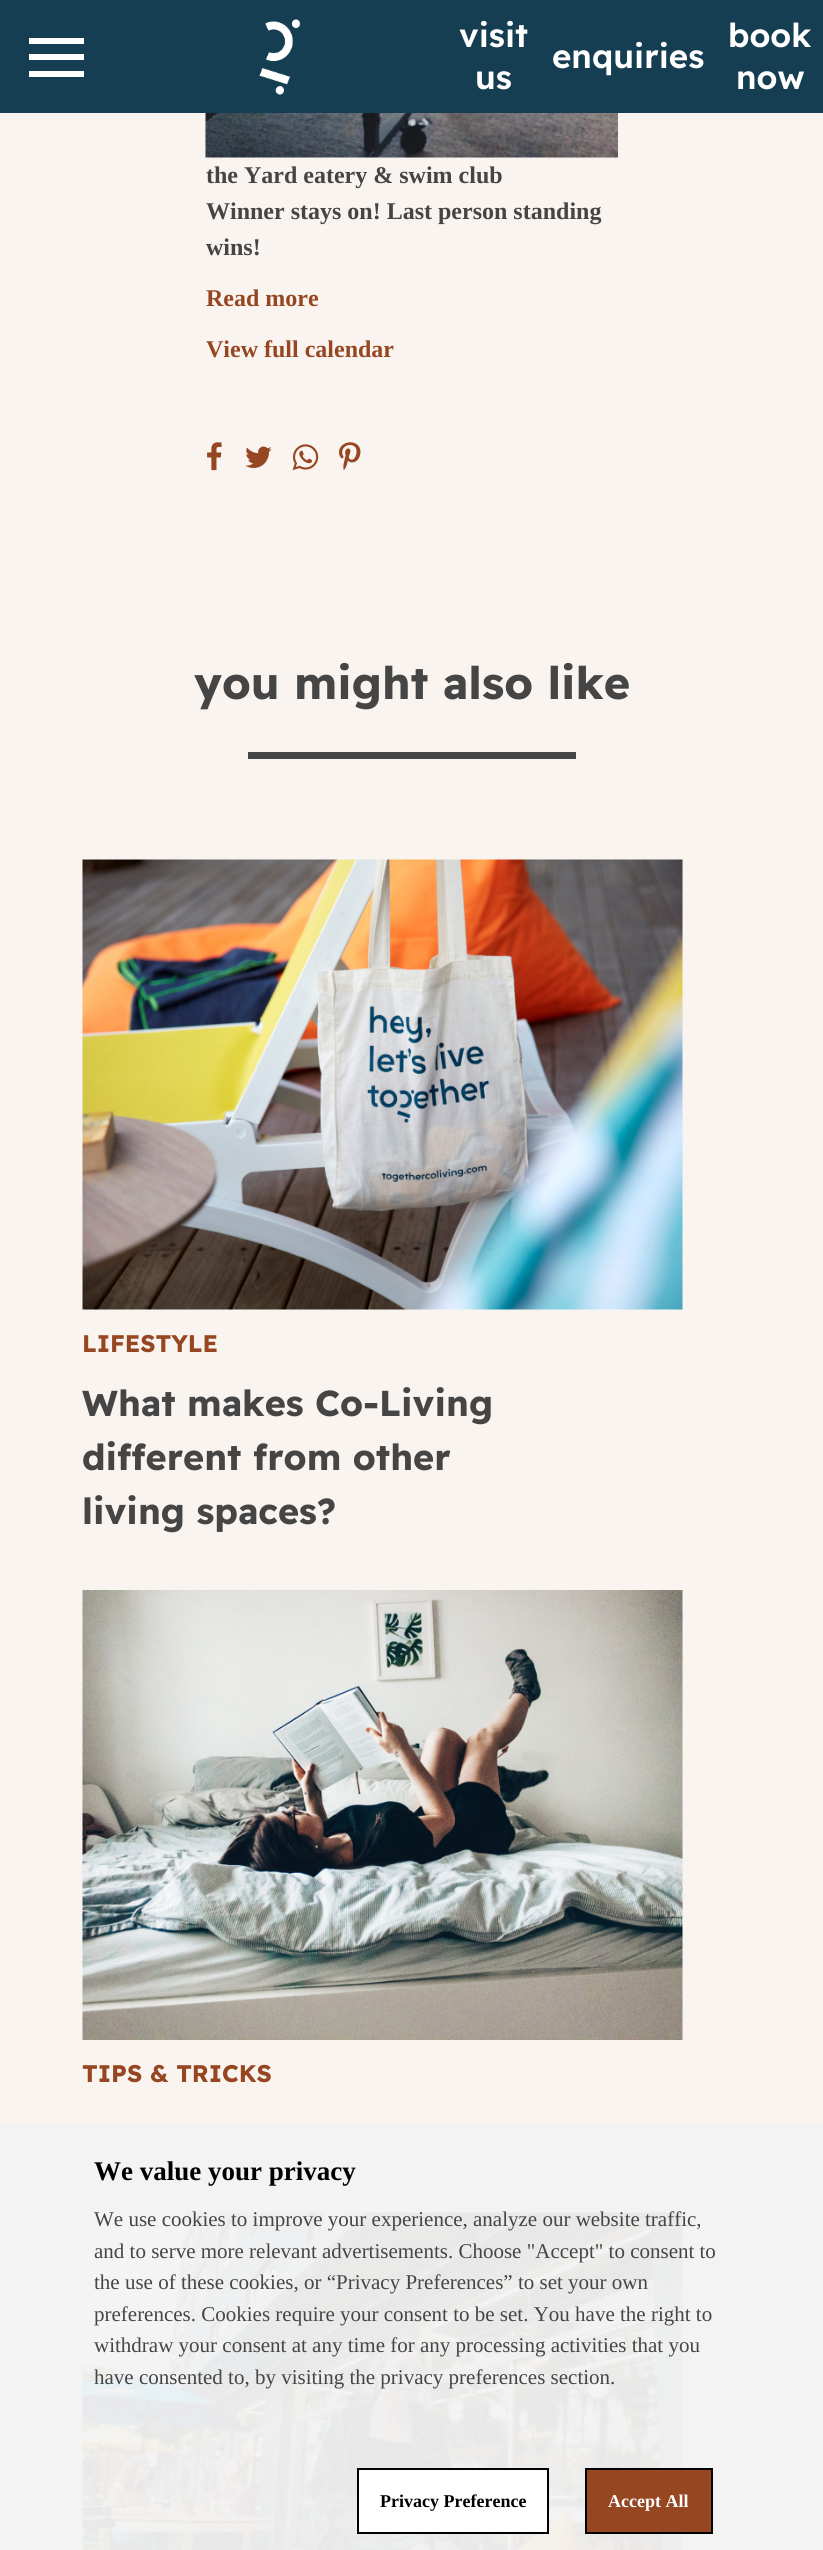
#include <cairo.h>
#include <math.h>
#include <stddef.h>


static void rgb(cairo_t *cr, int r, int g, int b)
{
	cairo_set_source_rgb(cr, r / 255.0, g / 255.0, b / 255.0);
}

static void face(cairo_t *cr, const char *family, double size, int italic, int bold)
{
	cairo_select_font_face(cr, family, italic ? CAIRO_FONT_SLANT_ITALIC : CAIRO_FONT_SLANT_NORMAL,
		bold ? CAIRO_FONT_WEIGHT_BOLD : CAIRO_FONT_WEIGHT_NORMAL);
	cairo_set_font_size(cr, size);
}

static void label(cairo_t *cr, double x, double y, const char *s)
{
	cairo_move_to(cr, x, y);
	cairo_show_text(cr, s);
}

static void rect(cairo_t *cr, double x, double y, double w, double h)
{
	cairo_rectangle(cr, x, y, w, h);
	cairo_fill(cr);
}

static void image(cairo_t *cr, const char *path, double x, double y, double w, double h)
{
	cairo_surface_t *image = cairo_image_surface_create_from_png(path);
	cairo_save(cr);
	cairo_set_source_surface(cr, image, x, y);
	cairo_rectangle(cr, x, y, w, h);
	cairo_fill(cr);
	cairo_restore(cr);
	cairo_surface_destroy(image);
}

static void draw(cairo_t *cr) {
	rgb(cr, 249, 244, 239);
	cairo_paint(cr);
	rgb(cr, 22, 62, 83);
	rect(cr, 0, 0, 823, 113);
	rgb(cr, 255, 255, 255);
	rect(cr, 29, 38, 55, 6);
	rect(cr, 29, 54, 55, 6);
	rect(cr, 29, 71, 55, 6);
	image(cr, "image0.png", 259, 19, 42, 76);
	face(cr, "Readex Pro SemiBold", 33, 0, 0);
	label(cr, 459, 47, "visit");
	label(cr, 475, 89, "us");
	label(cr, 552, 68, "enquiries");
	label(cr, 728, 47, "book");
	label(cr, 736, 89, "now");
	image(cr, "image1.png", 205, 113, 413, 45);
	face(cr, "Liberation Serif", 24, 0, 1);
	rgb(cr, 70, 69, 69);
	label(cr, 206, 183, "the Yard eatery & swim club");
	label(cr, 206, 219, "Winner stays on! Last person standing");
	label(cr, 206, 255, "wins!");
	rgb(cr, 150, 70, 33);
	label(cr, 206, 306, "Read more");
	label(cr, 206, 357, "View full calendar");
	image(cr, "image2.png", 207, 442, 15, 29);
	image(cr, "image3.png", 245, 446, 27, 22);
	image(cr, "image4.png", 292, 444, 27, 27);
	image(cr, "image5.png", 339, 442, 22, 29);
	face(cr, "Readex Pro", 45, 0, 1);
	rgb(cr, 70, 69, 69);
	label(cr, 194, 699, "you might also like");
	rect(cr, 248, 752, 328, 7);
	image(cr, "image6.png", 82, 859, 601, 451);
	face(cr, "Readex Pro", 24, 0, 1);
	rgb(cr, 150, 70, 33);
	label(cr, 82, 1352, "LIFESTYLE");
	face(cr, "Readex Pro", 36, 0, 1);
	rgb(cr, 70, 69, 69);
	label(cr, 82, 1416, "What makes Co-Living");
	label(cr, 82, 1470, "different from other");
	label(cr, 82, 1524, "living spaces?");
	image(cr, "image7.png", 82, 1590, 601, 450);
	face(cr, "Readex Pro", 24, 0, 1);
	rgb(cr, 150, 70, 33);
	label(cr, 82, 2082, "TIPS & TRICKS");
	image(cr, "image8.png", 82, 2212, 601, 338);
	cairo_set_source_rgba(cr, 0.957, 0.957, 0.957, 0.95);
	rect(cr, 0, 2124, 823, 426);
	face(cr, "Liberation Serif", 27, 0, 1);
	rgb(cr, 0, 0, 0);
	label(cr, 94, 2180, "We value your privacy");
	face(cr, "Liberation Serif", 21, 0, 0);
	rgb(cr, 70, 69, 69);
	label(cr, 94, 2226, "We use cookies to improve your experience, analyze our website traffic,");
	label(cr, 94, 2258, "and to serve more relevant advertisements. Choose \"Accept\" to consent to");
	label(cr, 94, 2289, "the use of these cookies, or “Privacy Preferences” to set your own");
	label(cr, 94, 2321, "preferences. Cookies require your consent to be set. You have the right to");
	label(cr, 94, 2352, "withdraw your consent at any time for any processing activities that you");
	label(cr, 94, 2384, "have consented to, by visiting the privacy preferences section.");
	rgb(cr, 255, 255, 255);
	cairo_rectangle(cr, 358, 2469, 190, 64);
	cairo_fill_preserve(cr);
	rgb(cr, 0, 0, 0);
	cairo_stroke(cr);
	face(cr, "Liberation Serif", 18, 0, 1);
	label(cr, 380, 2507, "Privacy Preference");
	rgb(cr, 150, 70, 33);
	cairo_rectangle(cr, 586, 2469, 126, 64);
	cairo_fill_preserve(cr);
	rgb(cr, 0, 0, 0);
	cairo_stroke(cr);
	rgb(cr, 255, 255, 255);
	label(cr, 608, 2507, "Accept All");
}

int main(void) {
	cairo_surface_t *surface = cairo_image_surface_create(CAIRO_FORMAT_RGB24, 823, 2550);
	cairo_t *cr = cairo_create(surface);
	cairo_font_options_t *options = cairo_font_options_create();
	cairo_font_options_set_hint_metrics(options, CAIRO_HINT_METRICS_OFF);
	cairo_font_options_set_hint_style(options, CAIRO_HINT_STYLE_NONE);
	cairo_set_font_options(cr, options);
	cairo_set_miter_limit(cr, 4);
	draw(cr);
	cairo_surface_write_to_png(surface, "render.png");
	cairo_font_options_destroy(options);
	cairo_destroy(cr);
	cairo_surface_destroy(surface);
	return 0;
}
